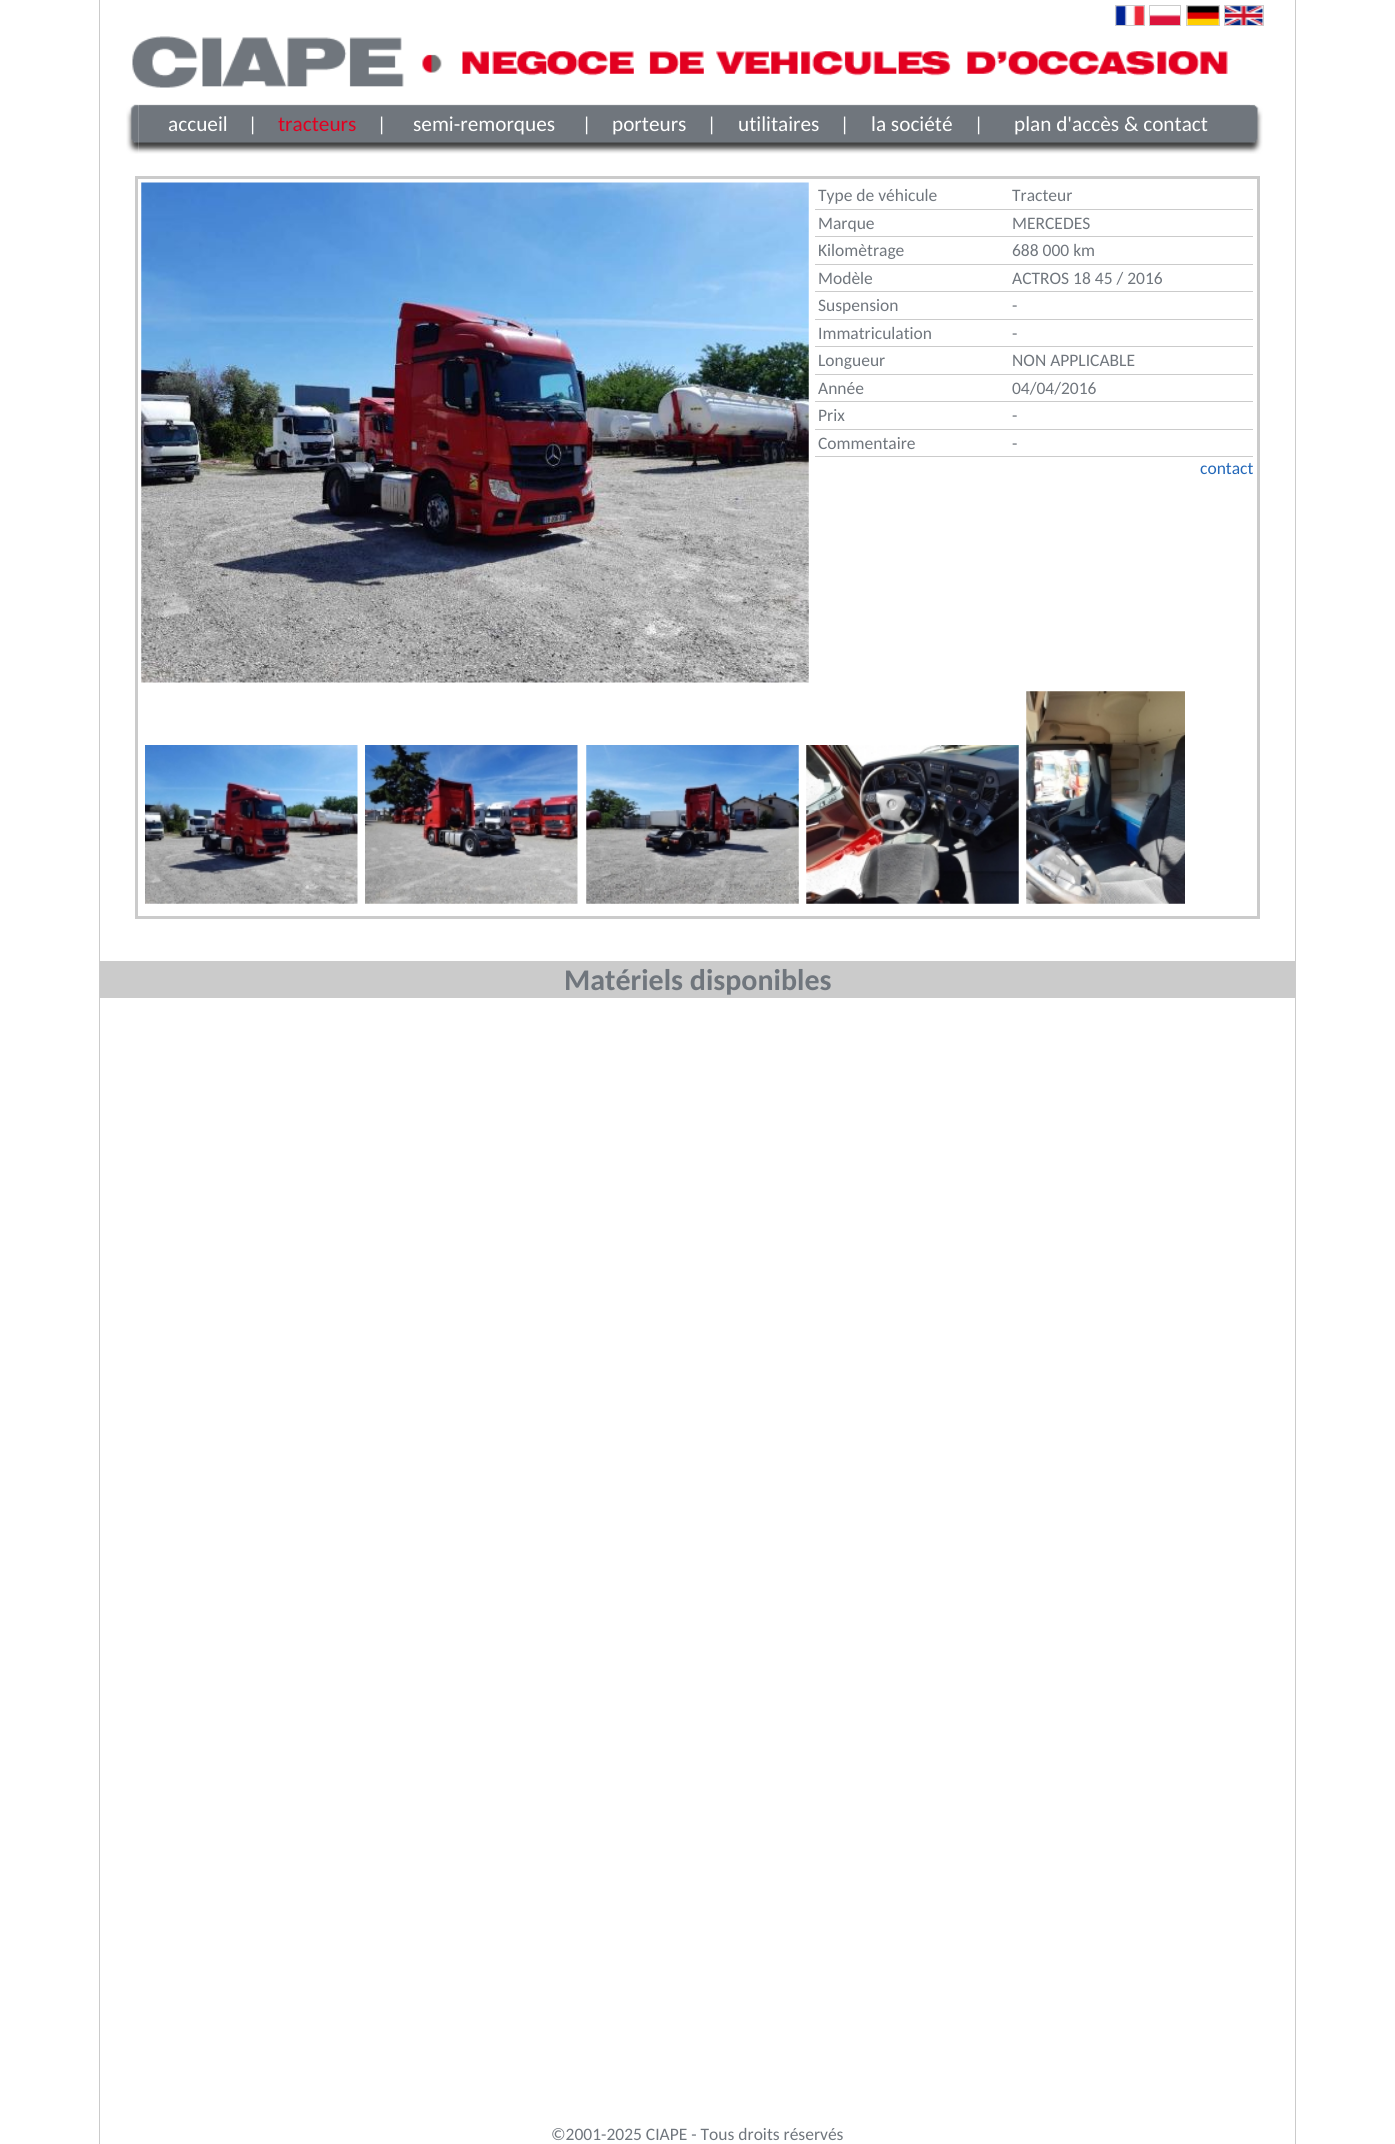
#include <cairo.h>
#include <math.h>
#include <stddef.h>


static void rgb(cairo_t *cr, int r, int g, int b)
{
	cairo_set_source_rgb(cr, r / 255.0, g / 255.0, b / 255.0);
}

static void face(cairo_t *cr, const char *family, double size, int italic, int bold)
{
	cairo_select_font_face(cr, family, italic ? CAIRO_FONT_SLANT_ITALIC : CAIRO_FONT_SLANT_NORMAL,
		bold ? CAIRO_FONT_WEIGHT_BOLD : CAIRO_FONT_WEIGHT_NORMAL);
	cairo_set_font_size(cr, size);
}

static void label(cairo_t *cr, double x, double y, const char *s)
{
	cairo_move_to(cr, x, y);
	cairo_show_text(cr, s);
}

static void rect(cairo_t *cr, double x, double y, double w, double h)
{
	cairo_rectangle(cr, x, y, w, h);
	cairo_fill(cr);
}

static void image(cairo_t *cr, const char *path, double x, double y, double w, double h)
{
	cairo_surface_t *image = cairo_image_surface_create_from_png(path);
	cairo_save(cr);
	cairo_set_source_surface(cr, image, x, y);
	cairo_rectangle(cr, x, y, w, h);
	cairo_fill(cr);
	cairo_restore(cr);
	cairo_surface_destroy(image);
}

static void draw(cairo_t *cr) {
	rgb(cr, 255, 255, 255);
	cairo_paint(cr);
	rgb(cr, 203, 203, 203);
	rect(cr, 1295, 0, 1, 2144);
	rect(cr, 99, 0, 1, 2144);
	cairo_rectangle(cr, 1115.5, 5.5, 29, 20);
	cairo_set_line_width(cr, 1);
	cairo_stroke(cr);
	cairo_rectangle(cr, 1149.5, 5.5, 31, 20);
	cairo_stroke(cr);
	cairo_rectangle(cr, 1186.5, 5.5, 33, 20);
	cairo_stroke(cr);
	cairo_rectangle(cr, 1224.5, 5.5, 39, 20);
	cairo_stroke(cr);
	image(cr, "image0.png", 1116, 6, 28, 19);
	image(cr, "image1.png", 1150, 14, 30, 11);
	image(cr, "image2.png", 1187, 6, 32, 19);
	image(cr, "image3.png", 1225, 6, 38, 19);
	image(cr, "image4.png", 132, 36, 1096, 52);
	image(cr, "image6.png", 138, 104, 1112, 50);
	image(cr, "image5.png", 126, 104, 13, 50);
	face(cr, "Carlito", 21.25, 0, 0);
	rgb(cr, 255, 255, 255);
	label(cr, 168, 131, "accueil");
	face(cr, "Carlito", 20, 0, 0);
	label(cr, 248, 131, "|");
	face(cr, "Carlito", 21.25, 0, 0);
	rgb(cr, 226, 0, 32);
	label(cr, 278, 131, "tracteurs");
	face(cr, "Carlito", 20, 0, 0);
	rgb(cr, 255, 255, 255);
	label(cr, 377, 131, "|");
	face(cr, "Carlito", 21.25, 0, 0);
	label(cr, 413, 131, "semi-remorques");
	face(cr, "Carlito", 20, 0, 0);
	label(cr, 582, 131, "|");
	face(cr, "Carlito", 21.25, 0, 0);
	label(cr, 612, 131, "porteurs");
	face(cr, "Carlito", 20, 0, 0);
	label(cr, 707, 131, "|");
	face(cr, "Carlito", 21.25, 0, 0);
	label(cr, 738, 131, "utilitaires");
	face(cr, "Carlito", 20, 0, 0);
	label(cr, 840, 131, "|");
	face(cr, "Carlito", 21.25, 0, 0);
	label(cr, 871, 131, "la société");
	face(cr, "Carlito", 20, 0, 0);
	label(cr, 974, 131, "|");
	face(cr, "Carlito", 21.25, 0, 0);
	label(cr, 1014, 131, "plan d'accès & contact");
	image(cr, "image7.png", 1250, 104, 13, 50);
	cairo_rectangle(cr, 136.5, 177.5, 1122, 740);
	rgb(cr, 203, 203, 203);
	cairo_set_line_width(cr, 3);
	cairo_stroke(cr);
	image(cr, "image8.png", 141, 182, 668, 501);
	rect(cr, 815, 209, 438, 1);
	face(cr, "Carlito", 17.5, 0, 0);
	rgb(cr, 112, 118, 125);
	label(cr, 818, 201, "Type de véhicule");
	label(cr, 1012, 201, "Tracteur");
	rgb(cr, 203, 203, 203);
	rect(cr, 815, 236, 438, 1);
	rgb(cr, 112, 118, 125);
	label(cr, 818, 229, "Marque");
	label(cr, 1012, 229, "MERCEDES");
	rgb(cr, 203, 203, 203);
	rect(cr, 815, 264, 438, 1);
	rgb(cr, 112, 118, 125);
	label(cr, 818, 256, "Kilomètrage");
	label(cr, 1012, 256, "688 000 km");
	rgb(cr, 203, 203, 203);
	rect(cr, 815, 291, 438, 1);
	rgb(cr, 112, 118, 125);
	label(cr, 818, 284, "Modèle");
	label(cr, 1012, 284, "ACTROS 18 45 / 2016");
	rgb(cr, 203, 203, 203);
	rect(cr, 815, 319, 438, 1);
	rgb(cr, 112, 118, 125);
	label(cr, 818, 311, "Suspension");
	label(cr, 1012, 311, "-");
	rgb(cr, 203, 203, 203);
	rect(cr, 815, 346, 438, 1);
	rgb(cr, 112, 118, 125);
	label(cr, 818, 339, "Immatriculation");
	label(cr, 1012, 339, "-");
	rgb(cr, 203, 203, 203);
	rect(cr, 815, 374, 438, 1);
	rgb(cr, 112, 118, 125);
	label(cr, 818, 366, "Longueur");
	label(cr, 1012, 366, "NON APPLICABLE");
	rgb(cr, 203, 203, 203);
	rect(cr, 815, 401, 438, 1);
	rgb(cr, 112, 118, 125);
	label(cr, 818, 394, "Année");
	label(cr, 1012, 394, "04/04/2016");
	rgb(cr, 203, 203, 203);
	rect(cr, 815, 429, 438, 1);
	rgb(cr, 112, 118, 125);
	label(cr, 818, 421, "Prix");
	label(cr, 1012, 421, "-");
	rgb(cr, 203, 203, 203);
	rect(cr, 815, 456, 438, 1);
	rgb(cr, 112, 118, 125);
	label(cr, 818, 449, "Commentaire");
	label(cr, 1012, 449, "-");
	rgb(cr, 35, 104, 185);
	label(cr, 1200, 474, "contact");
	image(cr, "image9.png", 145, 745, 213, 159);
	image(cr, "image10.png", 365, 745, 213, 159);
	image(cr, "image11.png", 586, 745, 213, 159);
	image(cr, "image12.png", 806, 745, 213, 159);
	image(cr, "image13.png", 1026, 691, 159, 213);
	rgb(cr, 203, 203, 203);
	rect(cr, 100, 961, 1195, 37);
	face(cr, "Carlito", 30, 0, 1);
	rgb(cr, 112, 118, 125);
	label(cr, 564, 990, "Matériels disponibles");
	face(cr, "Carlito", 17.5, 0, 0);
	label(cr, 551, 2140, "©2001-2025 CIAPE - Tous droits réservés");
}

int main(void) {
	cairo_surface_t *surface = cairo_image_surface_create(CAIRO_FORMAT_RGB24, 1395, 2144);
	cairo_t *cr = cairo_create(surface);
	cairo_font_options_t *options = cairo_font_options_create();
	cairo_font_options_set_hint_metrics(options, CAIRO_HINT_METRICS_OFF);
	cairo_font_options_set_hint_style(options, CAIRO_HINT_STYLE_NONE);
	cairo_set_font_options(cr, options);
	cairo_set_miter_limit(cr, 4);
	draw(cr);
	cairo_surface_write_to_png(surface, "render.png");
	cairo_font_options_destroy(options);
	cairo_destroy(cr);
	cairo_surface_destroy(surface);
	return 0;
}
